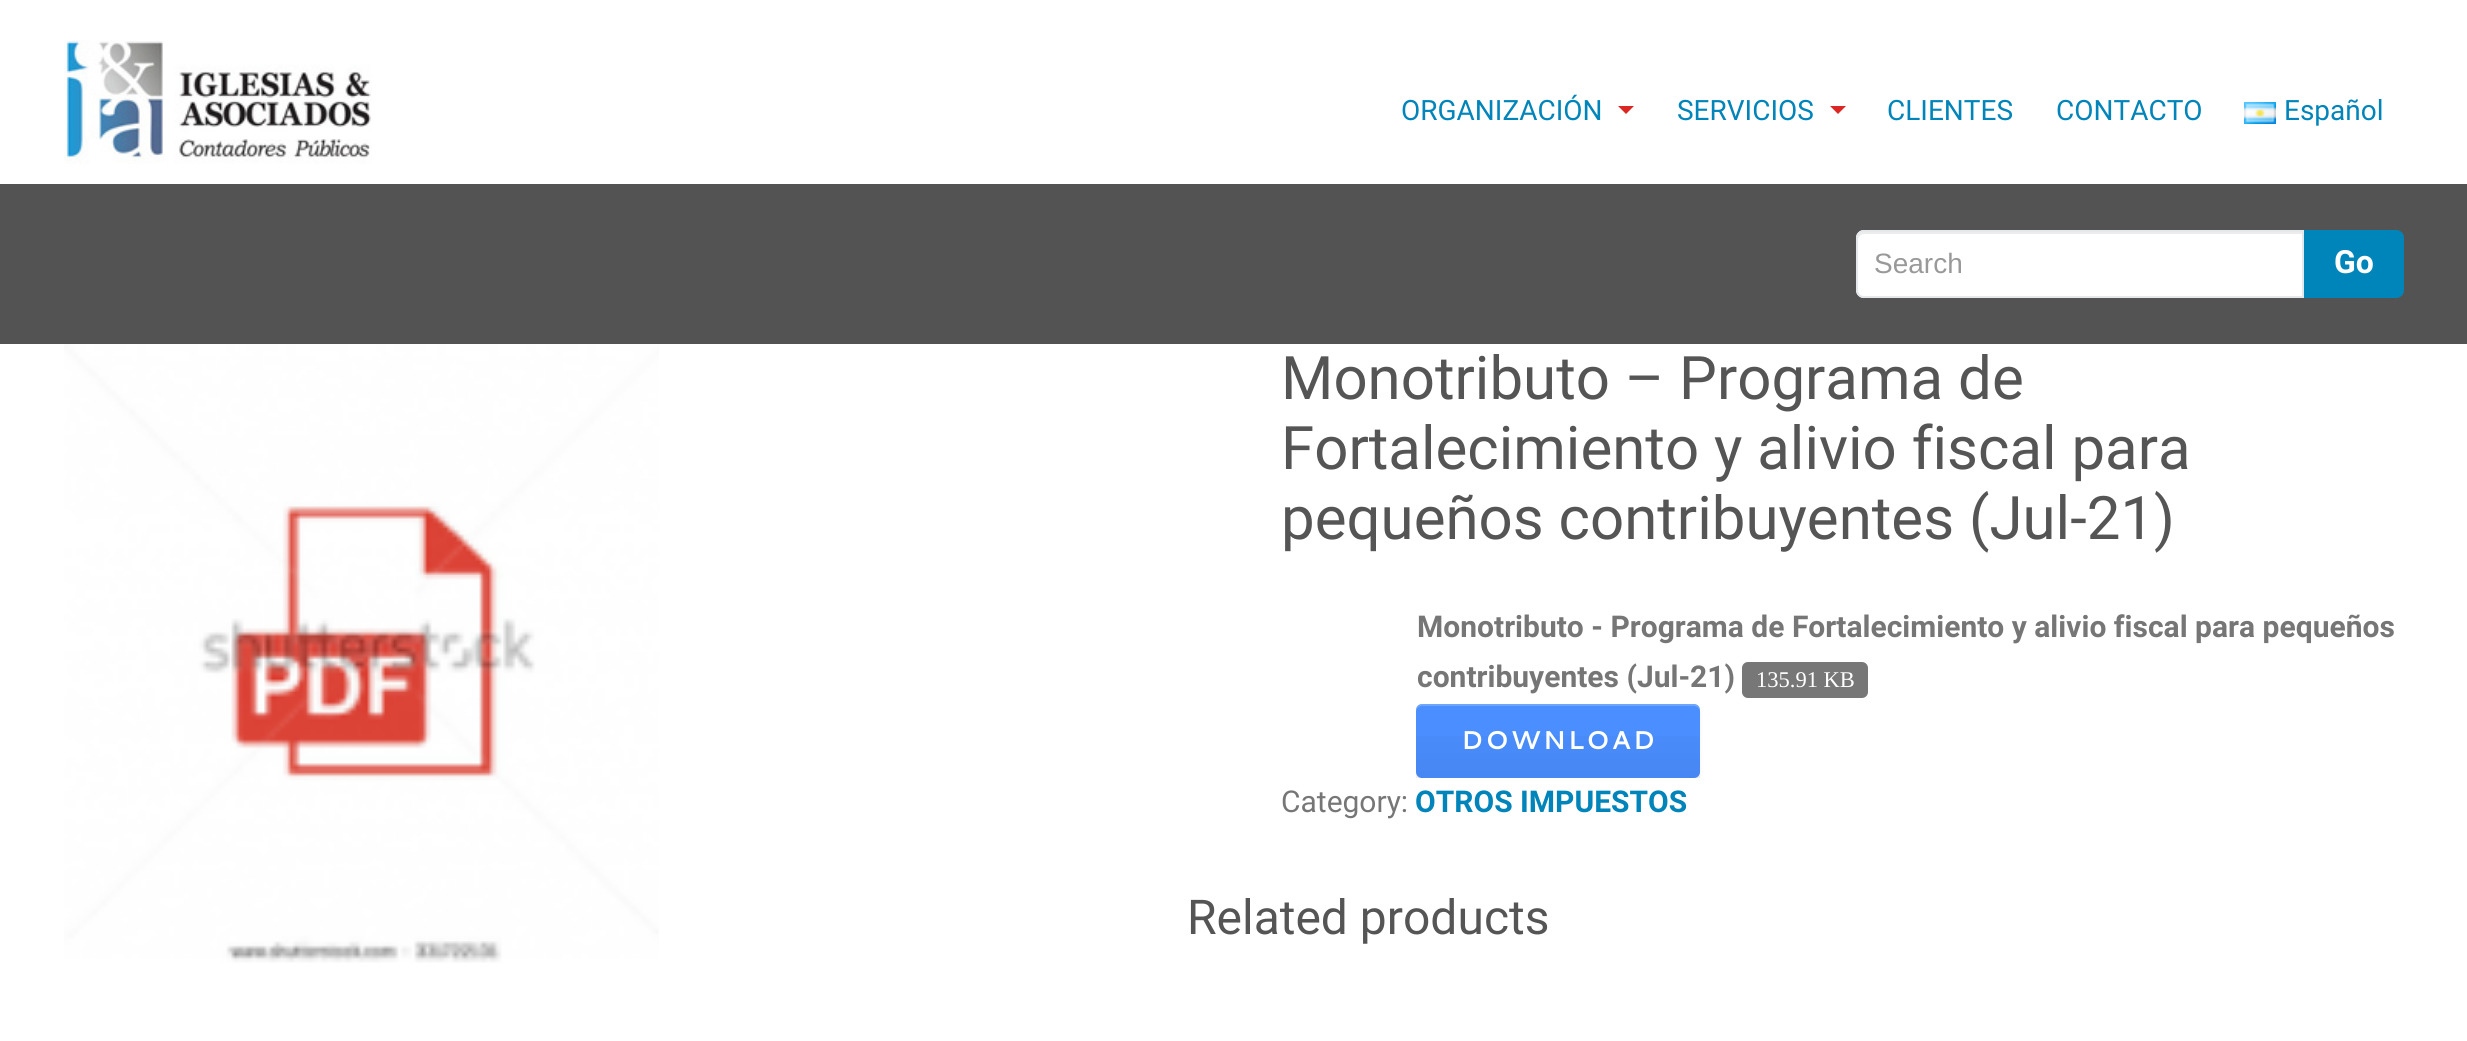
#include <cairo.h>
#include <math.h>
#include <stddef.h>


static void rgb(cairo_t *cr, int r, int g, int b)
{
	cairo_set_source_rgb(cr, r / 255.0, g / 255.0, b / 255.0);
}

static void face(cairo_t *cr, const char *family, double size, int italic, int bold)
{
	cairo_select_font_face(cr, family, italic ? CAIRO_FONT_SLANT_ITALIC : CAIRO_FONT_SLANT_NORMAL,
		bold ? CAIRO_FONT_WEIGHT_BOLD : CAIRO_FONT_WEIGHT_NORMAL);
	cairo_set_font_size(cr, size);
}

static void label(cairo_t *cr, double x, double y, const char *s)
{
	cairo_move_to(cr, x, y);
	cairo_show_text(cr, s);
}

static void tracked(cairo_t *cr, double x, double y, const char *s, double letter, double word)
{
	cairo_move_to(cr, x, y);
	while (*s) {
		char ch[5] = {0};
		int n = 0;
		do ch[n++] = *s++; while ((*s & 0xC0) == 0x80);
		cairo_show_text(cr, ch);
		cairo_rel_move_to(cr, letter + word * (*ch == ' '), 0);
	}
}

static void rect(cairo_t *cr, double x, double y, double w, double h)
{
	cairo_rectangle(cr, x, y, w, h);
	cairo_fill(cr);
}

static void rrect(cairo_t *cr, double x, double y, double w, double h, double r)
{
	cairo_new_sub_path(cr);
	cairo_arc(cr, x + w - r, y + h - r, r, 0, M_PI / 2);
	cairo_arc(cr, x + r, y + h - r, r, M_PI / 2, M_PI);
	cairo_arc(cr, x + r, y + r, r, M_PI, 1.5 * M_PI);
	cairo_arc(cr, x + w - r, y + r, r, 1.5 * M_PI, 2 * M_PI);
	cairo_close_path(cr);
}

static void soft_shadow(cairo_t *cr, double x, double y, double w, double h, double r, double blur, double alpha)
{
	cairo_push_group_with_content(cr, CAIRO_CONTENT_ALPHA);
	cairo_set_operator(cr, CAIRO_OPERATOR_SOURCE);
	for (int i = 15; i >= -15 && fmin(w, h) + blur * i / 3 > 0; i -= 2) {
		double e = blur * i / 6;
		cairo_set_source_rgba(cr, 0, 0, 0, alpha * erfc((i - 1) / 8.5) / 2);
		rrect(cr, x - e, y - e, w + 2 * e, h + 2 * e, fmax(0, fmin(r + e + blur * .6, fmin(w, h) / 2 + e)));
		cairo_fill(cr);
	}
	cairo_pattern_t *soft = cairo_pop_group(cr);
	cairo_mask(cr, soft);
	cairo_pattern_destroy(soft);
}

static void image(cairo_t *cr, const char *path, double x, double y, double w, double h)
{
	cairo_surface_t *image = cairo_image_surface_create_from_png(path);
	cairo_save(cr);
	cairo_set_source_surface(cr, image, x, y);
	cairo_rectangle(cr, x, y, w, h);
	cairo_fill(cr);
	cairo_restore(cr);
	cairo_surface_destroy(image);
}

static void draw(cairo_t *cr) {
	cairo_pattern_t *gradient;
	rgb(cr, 255, 255, 255);
	cairo_paint(cr);
	image(cr, "image0.png", 64, 40, 308, 124);
	face(cr, "Roboto", 28, 0, 0);
	rgb(cr, 0, 132, 185);
	label(cr, 1401, 120, "ORGANIZACIÓN");
	rgb(cr, 219, 39, 35);
	cairo_new_path(cr);
	cairo_move_to(cr, 1618, 106);
	cairo_line_to(cr, 1634, 106);
	cairo_line_to(cr, 1626, 114);
	cairo_close_path(cr);
	cairo_fill(cr);
	rgb(cr, 0, 132, 185);
	label(cr, 1677, 120, "SERVICIOS");
	rgb(cr, 219, 39, 35);
	cairo_new_path(cr);
	cairo_move_to(cr, 1830, 106);
	cairo_line_to(cr, 1846, 106);
	cairo_line_to(cr, 1838, 114);
	cairo_close_path(cr);
	cairo_fill(cr);
	rgb(cr, 0, 132, 185);
	label(cr, 1887, 120, "CLIENTES");
	label(cr, 2056, 120, "CONTACTO");
	image(cr, "image1.png", 2244, 102, 32, 22);
	label(cr, 2284, 120, "Español");
	rgb(cr, 83, 83, 84);
	rect(cr, 0, 184, 2467, 160);
	rgb(cr, 255, 255, 255);
	cairo_new_path(cr);
	cairo_move_to(cr, 1864, 230);
	cairo_line_to(cr, 2304, 230);
	cairo_line_to(cr, 2304, 298);
	cairo_line_to(cr, 1864, 298);
	cairo_curve_to(cr, 1859.5, 298, 1856, 294.5, 1856, 290);
	cairo_line_to(cr, 1856, 238);
	cairo_curve_to(cr, 1856, 233.5, 1859.5, 230, 1864, 230);
	cairo_close_path(cr);
	cairo_fill(cr);
	rgb(cr, 236, 236, 236);
	cairo_new_path(cr);
	cairo_move_to(cr, 1864, 234);
	cairo_line_to(cr, 2302, 234);
	cairo_line_to(cr, 2302, 232);
	cairo_line_to(cr, 1864, 232);
	cairo_curve_to(cr, 1859, 232, 1858, 236, 1858, 240);
	cairo_curve_to(cr, 1858, 237, 1861, 234, 1864, 234);
	cairo_close_path(cr);
	cairo_fill(cr);
	cairo_new_path(cr);
	cairo_move_to(cr, 1864, 231);
	cairo_line_to(cr, 2303, 231);
	cairo_line_to(cr, 2303, 297);
	cairo_line_to(cr, 1864, 297);
	cairo_curve_to(cr, 1860, 297, 1857, 294, 1857, 290);
	cairo_line_to(cr, 1857, 238);
	cairo_curve_to(cr, 1857, 234, 1860, 231, 1864, 231);
	cairo_close_path(cr);
	rgb(cr, 228, 232, 234);
	cairo_stroke(cr);
	face(cr, "Liberation Sans", 28, 0, 0);
	rgb(cr, 153, 153, 153);
	label(cr, 1874, 273, "Search");
	rgb(cr, 0, 133, 186);
	cairo_new_path(cr);
	cairo_move_to(cr, 2304, 230);
	cairo_line_to(cr, 2396, 230);
	cairo_curve_to(cr, 2400.5, 230, 2404, 233.5, 2404, 238);
	cairo_line_to(cr, 2404, 290);
	cairo_curve_to(cr, 2404, 294.5, 2400.5, 298, 2396, 298);
	cairo_line_to(cr, 2304, 298);
	cairo_close_path(cr);
	cairo_fill(cr);
	face(cr, "Roboto", 32, 0, 1);
	rgb(cr, 255, 255, 255);
	label(cr, 2334, 273, "Go");
	image(cr, "image2.png", 64, 344, 595, 619);
	face(cr, "Roboto", 60, 0, 0);
	rgb(cr, 85, 85, 85);
	label(cr, 1281, 399, "Monotributo – Programa de");
	label(cr, 1281, 469, "Fortalecimiento y alivio fiscal para");
	label(cr, 1281, 539, "pequeños contribuyentes (Jul-21)");
	face(cr, "Roboto", 30, 0, 1);
	rgb(cr, 118, 118, 118);
	label(cr, 1417, 637, "Monotributo - Programa de Fortalecimiento y alivio fiscal para pequeños");
	label(cr, 1417, 687, "contribuyentes (Jul-21)");
	rgb(cr, 119, 119, 119);
	rrect(cr, 1742, 662, 126, 36, 6);
	cairo_fill(cr);
	face(cr, "Liberation Serif", 22.5, 0, 0);
	rgb(cr, 255, 255, 255);
	label(cr, 1756, 687, "135.91 KB");
	cairo_save(cr);
	cairo_rectangle(cr, 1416, 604, 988, 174);
	cairo_clip(cr);
	rgb(cr, 0, 0, 0);
	soft_shadow(cr, 1416, 706, 284, 74, 6, 2, 0.05);
	cairo_restore(cr);
	rgb(cr, 74, 142, 255);
	rrect(cr, 1416, 704, 284, 74, 6);
	cairo_fill(cr);
	gradient = cairo_pattern_create_linear(1558, 704, 1558, 778);
	cairo_pattern_add_color_stop_rgba(gradient, 0, 0, 0, 0, 0);
	cairo_pattern_add_color_stop_rgba(gradient, 1, 0, 0, 0, 0.05);
	cairo_set_source(cr, gradient);
	cairo_pattern_destroy(gradient);
	rect(cr, 1416, 736, 284, 42);
	cairo_set_source_rgba(cr, 1, 1, 1, 0.2);
	cairo_new_path(cr);
	cairo_move_to(cr, 1422, 706);
	cairo_line_to(cr, 1694, 706);
	cairo_curve_to(cr, 1697, 706, 1700, 709, 1700, 712);
	cairo_line_to(cr, 1700, 710);
	cairo_curve_to(cr, 1700, 707, 1697, 704, 1694, 704);
	cairo_line_to(cr, 1422, 704);
	cairo_curve_to(cr, 1419, 704, 1416, 707, 1416, 710);
	cairo_line_to(cr, 1416, 712);
	cairo_curve_to(cr, 1416, 709, 1419, 706, 1422, 706);
	cairo_close_path(cr);
	cairo_fill(cr);
	face(cr, "Cantarell", 25.75, 0, 1);
	rgb(cr, 255, 255, 255);
	tracked(cr, 1461, 749, "DOWNLOAD", 2, 0);
	face(cr, "Roboto", 30, 0, 0);
	rgb(cr, 118, 118, 118);
	label(cr, 1281, 812, "Category:");
	face(cr, "Roboto", 30, 0, 1);
	rgb(cr, 0, 132, 185);
	label(cr, 1415, 812, "OTROS IMPUESTOS");
	face(cr, "Roboto", 48, 0, 0);
	rgb(cr, 85, 85, 85);
	label(cr, 1187, 934, "Related products");
}

int main(void) {
	cairo_surface_t *surface = cairo_image_surface_create(CAIRO_FORMAT_RGB24, 2467, 1041);
	cairo_t *cr = cairo_create(surface);
	cairo_font_options_t *options = cairo_font_options_create();
	cairo_font_options_set_hint_metrics(options, CAIRO_HINT_METRICS_OFF);
	cairo_font_options_set_hint_style(options, CAIRO_HINT_STYLE_NONE);
	cairo_set_font_options(cr, options);
	cairo_set_miter_limit(cr, 4);
	draw(cr);
	cairo_surface_write_to_png(surface, "render.png");
	cairo_font_options_destroy(options);
	cairo_destroy(cr);
	cairo_surface_destroy(surface);
	return 0;
}
